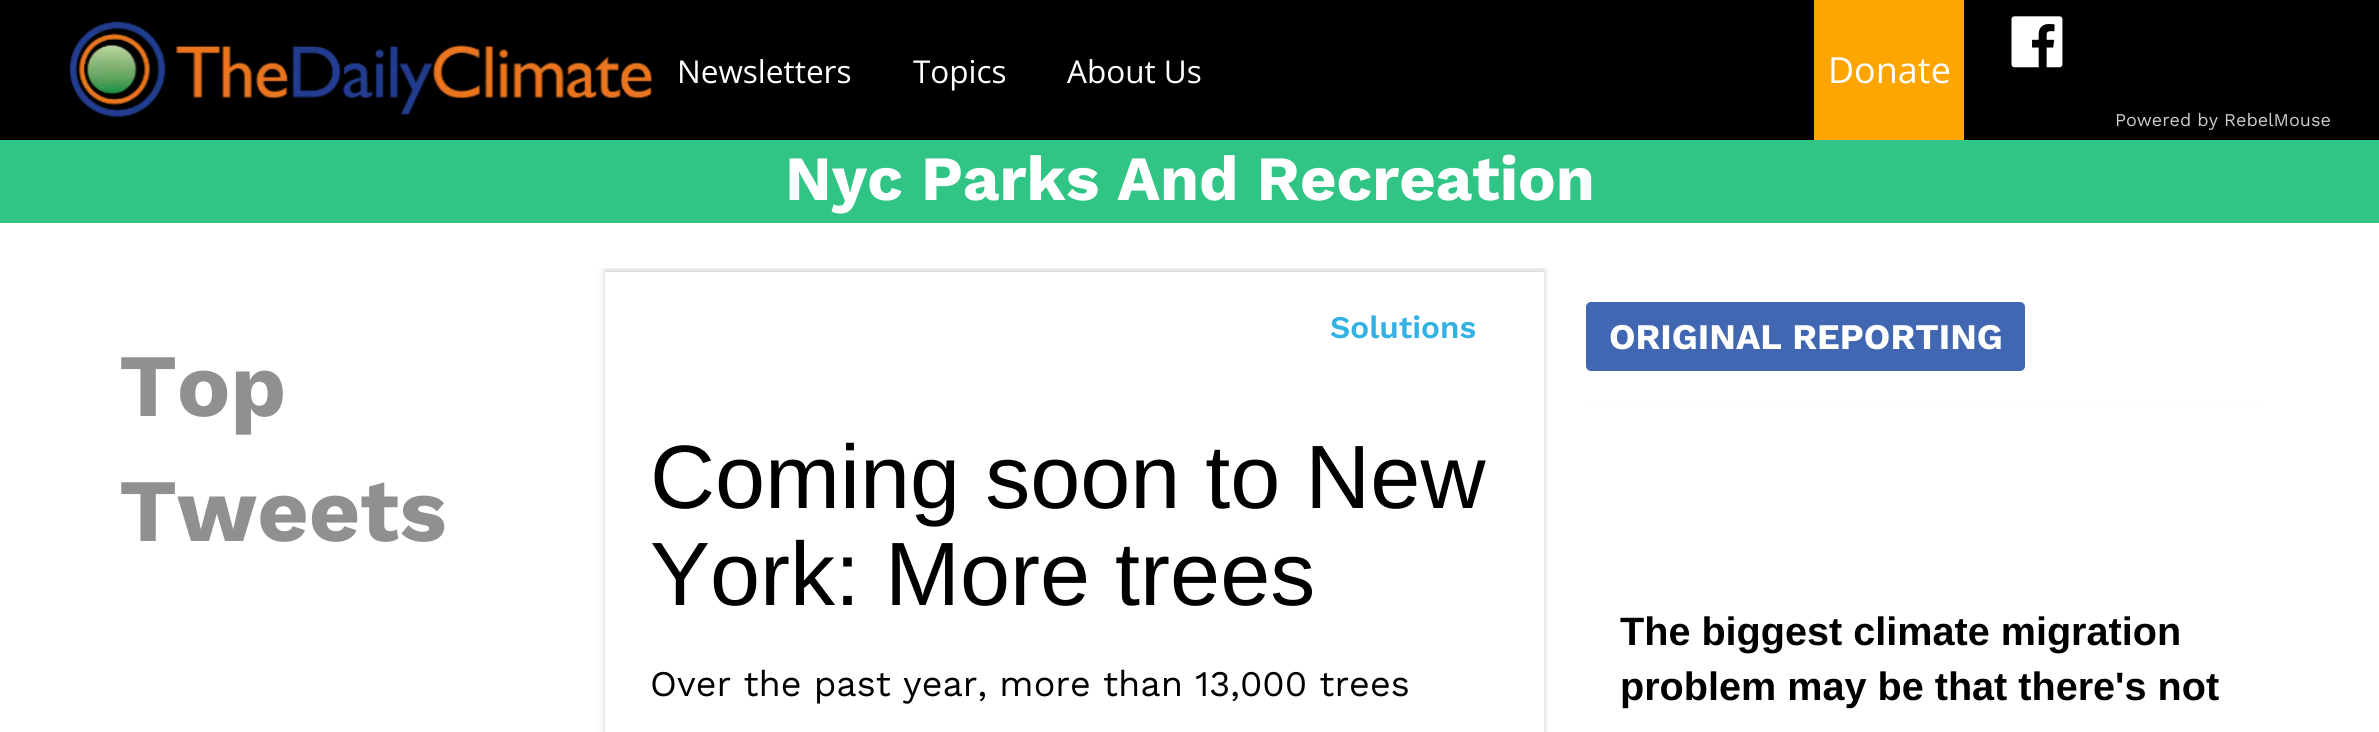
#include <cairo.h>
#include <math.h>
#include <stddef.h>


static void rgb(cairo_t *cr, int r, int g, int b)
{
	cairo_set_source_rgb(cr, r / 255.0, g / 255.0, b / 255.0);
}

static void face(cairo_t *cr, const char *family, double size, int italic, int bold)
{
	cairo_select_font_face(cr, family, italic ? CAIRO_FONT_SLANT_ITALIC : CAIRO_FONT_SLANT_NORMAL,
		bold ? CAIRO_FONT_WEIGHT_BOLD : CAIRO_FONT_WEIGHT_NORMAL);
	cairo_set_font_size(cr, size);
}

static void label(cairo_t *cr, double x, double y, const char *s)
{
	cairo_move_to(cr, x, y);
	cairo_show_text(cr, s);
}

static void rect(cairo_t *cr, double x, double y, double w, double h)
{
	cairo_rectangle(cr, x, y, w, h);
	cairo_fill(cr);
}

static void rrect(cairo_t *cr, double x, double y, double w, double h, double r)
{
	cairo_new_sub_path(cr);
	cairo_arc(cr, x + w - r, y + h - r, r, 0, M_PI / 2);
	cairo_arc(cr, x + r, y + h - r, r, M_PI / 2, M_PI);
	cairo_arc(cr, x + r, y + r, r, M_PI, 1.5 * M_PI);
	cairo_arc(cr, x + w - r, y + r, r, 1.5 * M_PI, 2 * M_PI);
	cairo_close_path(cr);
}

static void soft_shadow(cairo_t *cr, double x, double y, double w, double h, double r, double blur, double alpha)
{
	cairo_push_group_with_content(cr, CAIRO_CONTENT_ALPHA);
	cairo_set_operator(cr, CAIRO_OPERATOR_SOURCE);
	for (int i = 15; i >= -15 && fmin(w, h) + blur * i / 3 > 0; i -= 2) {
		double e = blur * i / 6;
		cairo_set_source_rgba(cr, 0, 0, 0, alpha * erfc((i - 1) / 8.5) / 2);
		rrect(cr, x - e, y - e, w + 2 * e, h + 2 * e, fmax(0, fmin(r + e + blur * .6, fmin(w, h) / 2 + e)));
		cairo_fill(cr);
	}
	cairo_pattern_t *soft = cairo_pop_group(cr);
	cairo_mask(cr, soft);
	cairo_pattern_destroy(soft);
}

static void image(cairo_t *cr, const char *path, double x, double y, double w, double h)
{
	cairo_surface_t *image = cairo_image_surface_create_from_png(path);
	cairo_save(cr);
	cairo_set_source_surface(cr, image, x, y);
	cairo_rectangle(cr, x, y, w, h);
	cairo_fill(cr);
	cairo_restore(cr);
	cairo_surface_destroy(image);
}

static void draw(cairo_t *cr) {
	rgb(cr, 255, 255, 255);
	cairo_paint(cr);
	rgb(cr, 0, 0, 0);
	rect(cr, 0, 0, 2379, 140);
	image(cr, "image0.png", 69, 21, 584, 96);
	face(cr, "Open Sans", 31.5, 0, 0);
	rgb(cr, 255, 255, 255);
	label(cr, 677, 83, "Newsletters");
	label(cr, 913, 83, "Topics");
	label(cr, 1067, 83, "About Us");
	rgb(cr, 255, 165, 0);
	rect(cr, 1814, 0, 150, 140);
	face(cr, "Open Sans", 36, 0, 0);
	rgb(cr, 255, 255, 255);
	label(cr, 1828, 83, "Donate");
	image(cr, "image1.png", 2011, 16, 52, 52);
	face(cr, "Work Sans", 18, 0, 0);
	rgb(cr, 204, 204, 204);
	label(cr, 2115, 126, "Powered by RebelMouse");
	rgb(cr, 48, 197, 133);
	rect(cr, 0, 140, 2379, 83);
	face(cr, "Work Sans", 63, 0, 1);
	rgb(cr, 255, 255, 255);
	label(cr, 785, 200, "Nyc Parks And Recreation");
	face(cr, "Work Sans", 89, 0, 1);
	rgb(cr, 144, 144, 144);
	label(cr, 119, 416, "Top");
	label(cr, 119, 541, "Tweets");
	cairo_save(cr);
	cairo_rectangle(cr, 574, 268, 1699, 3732);
	cairo_clip(cr);
	rgb(cr, 204, 204, 204);
	soft_shadow(cr, 605, 270, 939, 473, 0, 3.5, 1);
	cairo_restore(cr);
	rgb(cr, 255, 255, 255);
	rect(cr, 605, 272, 939, 460);
	face(cr, "Work Sans SemiBold", 31.5, 0, 0);
	rgb(cr, 51, 177, 227);
	label(cr, 1330, 338, "Solutions");
	face(cr, "Liberation Sans", 90, 0, 0);
	rgb(cr, 0, 0, 0);
	label(cr, 650, 508, "Coming soon to New");
	label(cr, 650, 605, "York: More trees");
	face(cr, "Work Sans", 36, 0, 0);
	label(cr, 650, 696, "Over the past year, more than 13,000 trees");
	rgb(cr, 66, 103, 178);
	rrect(cr, 1586, 302, 439, 69, 5);
	cairo_fill(cr);
	face(cr, "Work Sans", 36, 0, 1);
	rgb(cr, 255, 255, 255);
	label(cr, 1609, 349, "ORIGINAL REPORTING");
	cairo_save(cr);
	cairo_rectangle(cr, 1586, 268, 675, 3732);
	cairo_clip(cr);
	rgb(cr, 0, 0, 0);
	soft_shadow(cr, 1586, 407, 675, 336, 5, 2, 0.19);
	cairo_restore(cr);
	rrect(cr, 1586, 405, 675, 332, 5);
	cairo_fill(cr);
	face(cr, "Liberation Sans", 39.6, 0, 1);
	rgb(cr, 0, 0, 0);
	label(cr, 1620, 645, "The biggest climate migration");
	label(cr, 1620, 700, "problem may be that there's not");
}

int main(void) {
	cairo_surface_t *surface = cairo_image_surface_create(CAIRO_FORMAT_RGB24, 2379, 732);
	cairo_t *cr = cairo_create(surface);
	cairo_font_options_t *options = cairo_font_options_create();
	cairo_font_options_set_hint_metrics(options, CAIRO_HINT_METRICS_OFF);
	cairo_font_options_set_hint_style(options, CAIRO_HINT_STYLE_NONE);
	cairo_set_font_options(cr, options);
	cairo_set_miter_limit(cr, 4);
	draw(cr);
	cairo_surface_write_to_png(surface, "render.png");
	cairo_font_options_destroy(options);
	cairo_destroy(cr);
	cairo_surface_destroy(surface);
	return 0;
}
